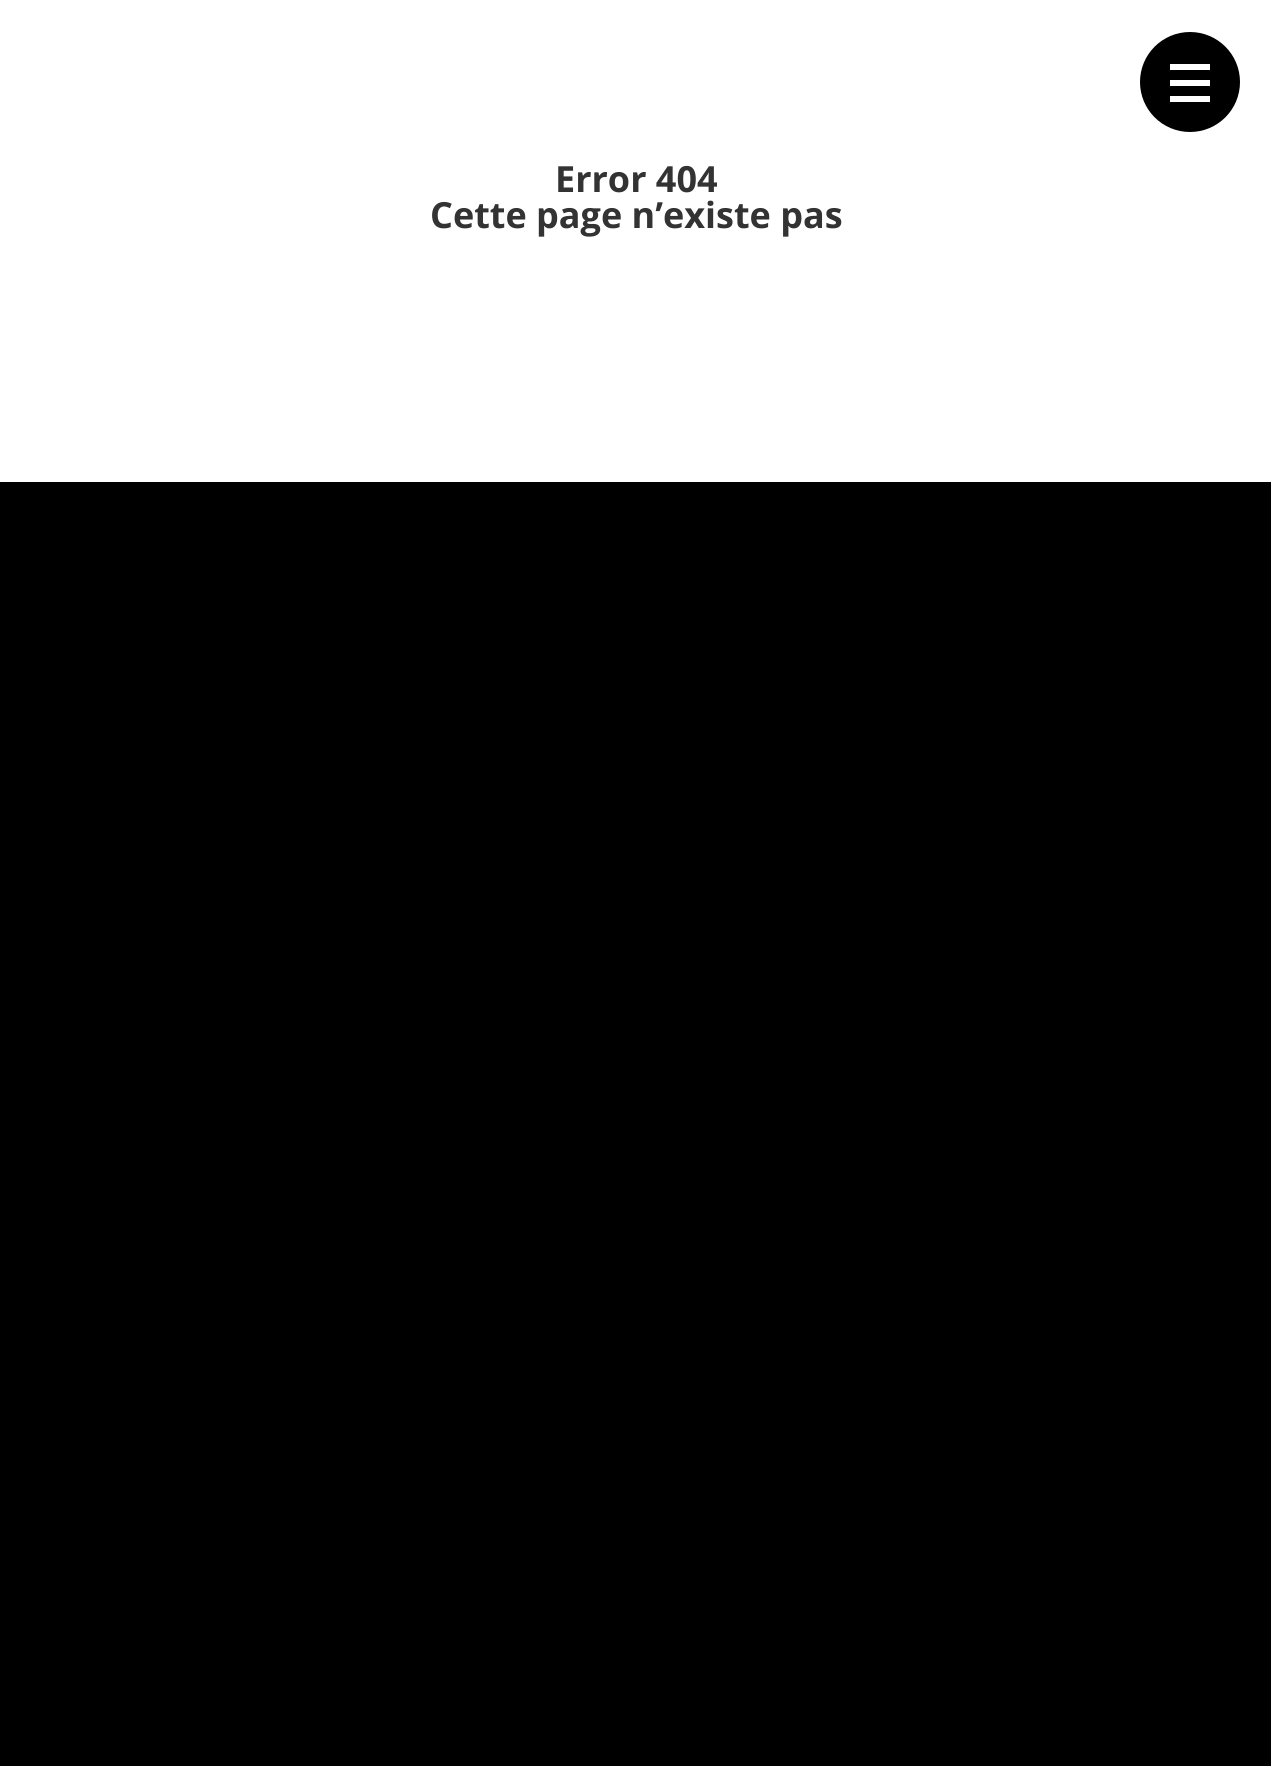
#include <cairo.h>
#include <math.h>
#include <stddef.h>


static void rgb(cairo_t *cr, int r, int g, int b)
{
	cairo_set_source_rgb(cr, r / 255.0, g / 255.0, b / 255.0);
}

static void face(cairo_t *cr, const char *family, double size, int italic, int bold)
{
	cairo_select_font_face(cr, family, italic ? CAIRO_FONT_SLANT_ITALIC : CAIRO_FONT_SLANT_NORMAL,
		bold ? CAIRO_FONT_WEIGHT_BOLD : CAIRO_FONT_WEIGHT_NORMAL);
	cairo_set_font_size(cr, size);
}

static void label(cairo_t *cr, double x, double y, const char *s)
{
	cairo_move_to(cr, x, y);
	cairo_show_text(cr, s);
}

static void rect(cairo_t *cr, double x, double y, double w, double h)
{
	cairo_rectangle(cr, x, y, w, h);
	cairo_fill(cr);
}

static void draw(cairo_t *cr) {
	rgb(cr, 255, 255, 255);
	cairo_paint(cr);
	rgb(cr, 0, 0, 0);
	cairo_arc(cr, 1190, 82, 50, 0, 2 * M_PI);
	cairo_fill(cr);
	rgb(cr, 255, 255, 255);
	rect(cr, 1170, 80, 40, 6);
	rect(cr, 1170, 64, 40, 6);
	rect(cr, 1170, 96, 40, 6);
	face(cr, "Open Sans", 36, 0, 1);
	rgb(cr, 51, 51, 51);
	label(cr, 555, 192, "Error 404");
	label(cr, 430, 228, "Cette page n’existe pas");
	rgb(cr, 0, 0, 0);
	rect(cr, 0, 482, 1271, 1284);
}

int main(void) {
	cairo_surface_t *surface = cairo_image_surface_create(CAIRO_FORMAT_RGB24, 1271, 1766);
	cairo_t *cr = cairo_create(surface);
	cairo_font_options_t *options = cairo_font_options_create();
	cairo_font_options_set_hint_metrics(options, CAIRO_HINT_METRICS_OFF);
	cairo_font_options_set_hint_style(options, CAIRO_HINT_STYLE_NONE);
	cairo_set_font_options(cr, options);
	cairo_set_miter_limit(cr, 4);
	draw(cr);
	cairo_surface_write_to_png(surface, "render.png");
	cairo_font_options_destroy(options);
	cairo_destroy(cr);
	cairo_surface_destroy(surface);
	return 0;
}
